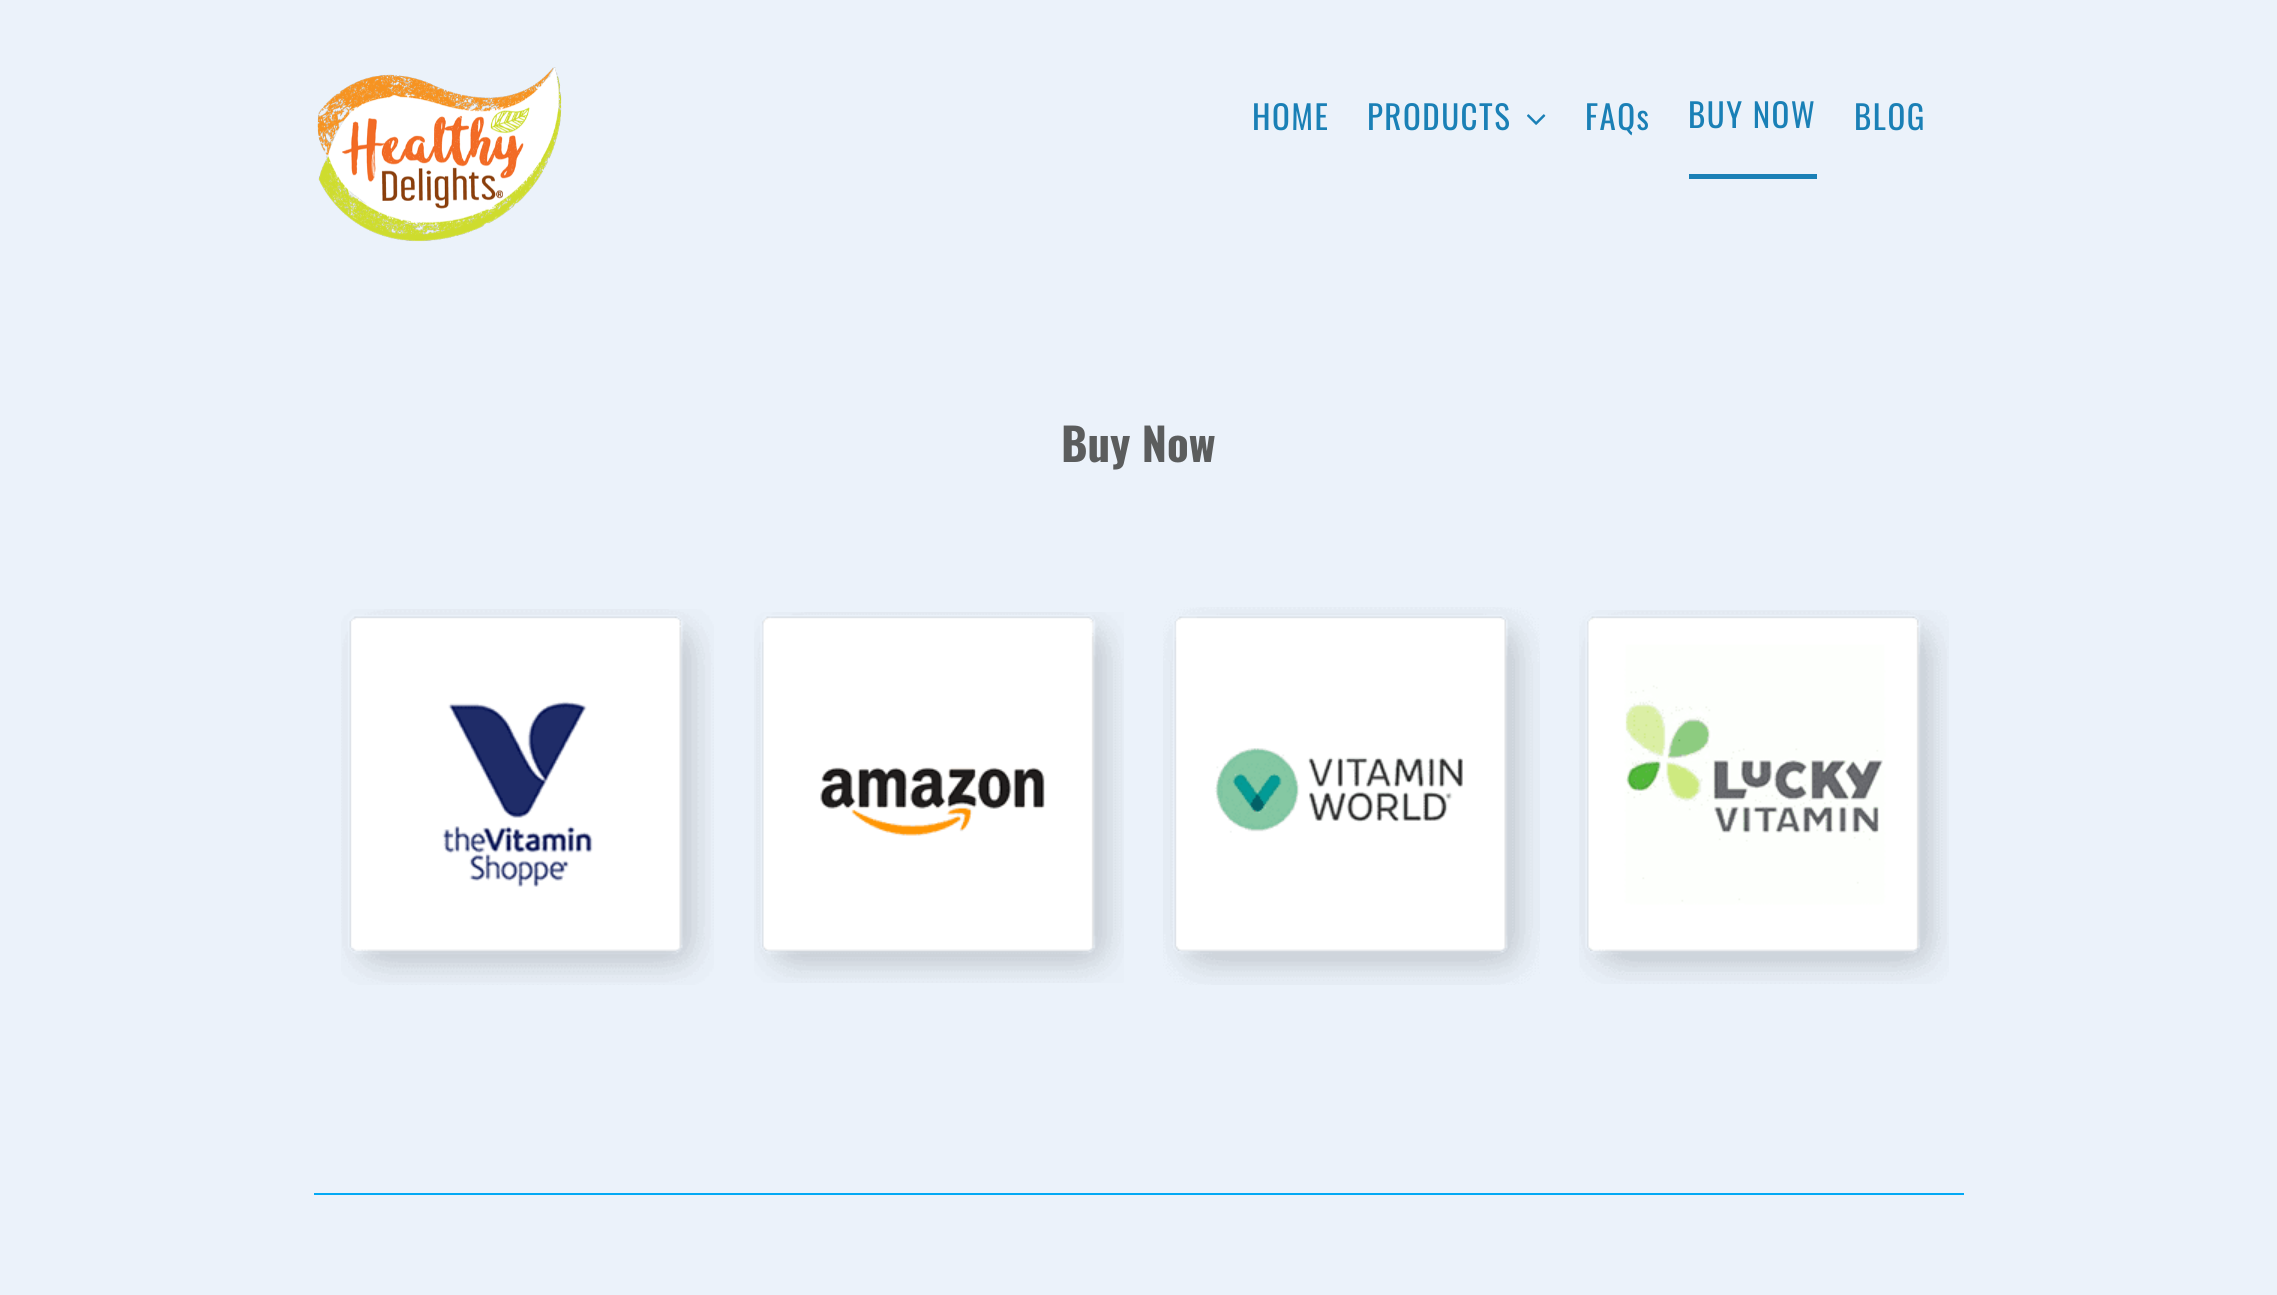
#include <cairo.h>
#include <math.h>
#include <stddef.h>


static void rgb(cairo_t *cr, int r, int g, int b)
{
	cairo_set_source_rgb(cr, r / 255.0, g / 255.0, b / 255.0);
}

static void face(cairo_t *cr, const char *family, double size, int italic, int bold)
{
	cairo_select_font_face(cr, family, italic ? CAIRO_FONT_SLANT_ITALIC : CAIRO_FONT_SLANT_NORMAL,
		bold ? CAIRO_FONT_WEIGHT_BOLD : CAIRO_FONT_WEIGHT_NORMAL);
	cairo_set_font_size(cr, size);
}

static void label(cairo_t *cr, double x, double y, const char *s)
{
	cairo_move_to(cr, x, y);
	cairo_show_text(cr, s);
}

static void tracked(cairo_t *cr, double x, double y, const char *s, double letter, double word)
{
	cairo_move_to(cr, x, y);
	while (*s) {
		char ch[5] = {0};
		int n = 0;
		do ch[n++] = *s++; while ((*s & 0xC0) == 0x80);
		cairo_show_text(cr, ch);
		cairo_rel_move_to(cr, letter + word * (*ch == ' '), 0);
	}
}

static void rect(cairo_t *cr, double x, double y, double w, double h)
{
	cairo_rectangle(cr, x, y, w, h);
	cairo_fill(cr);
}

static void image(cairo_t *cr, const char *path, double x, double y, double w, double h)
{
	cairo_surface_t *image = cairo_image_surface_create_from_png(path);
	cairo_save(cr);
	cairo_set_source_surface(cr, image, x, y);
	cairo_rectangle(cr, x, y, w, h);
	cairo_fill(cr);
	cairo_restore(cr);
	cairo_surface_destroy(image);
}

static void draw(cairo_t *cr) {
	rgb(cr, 235, 242, 250);
	cairo_paint(cr);
	image(cr, "image0.png", 317, 67, 245, 175);
	face(cr, "Oswald", 33, 0, 0);
	rgb(cr, 26, 128, 182);
	tracked(cr, 1252, 130, "HOME", 1.5, 0);
	tracked(cr, 1367, 130, "PRODUCTS", 1.5, 0);
	image(cr, "image1.png", 1527, 114, 19, 11);
	tracked(cr, 1585, 130, "FAQs", 1.5, 0);
	rect(cr, 1689, 174, 128, 5);
	tracked(cr, 1688, 128, "BUY NOW", 1.5, 0);
	tracked(cr, 1854, 130, "BLOG", 1.5, 0);
	face(cr, "Oswald", 45, 0, 1);
	rgb(cr, 91, 93, 93);
	label(cr, 1061, 462, "Buy Now");
	image(cr, "image2.png", 341, 609, 373, 376);
	image(cr, "image3.png", 754, 612, 370, 371);
	image(cr, "image4.png", 1163, 607, 377, 378);
	image(cr, "image5.png", 1579, 610, 370, 374);
	rgb(cr, 3, 169, 244);
	rect(cr, 314, 1193, 1650, 2);
}

int main(void) {
	cairo_surface_t *surface = cairo_image_surface_create(CAIRO_FORMAT_RGB24, 2277, 1295);
	cairo_t *cr = cairo_create(surface);
	cairo_font_options_t *options = cairo_font_options_create();
	cairo_font_options_set_hint_metrics(options, CAIRO_HINT_METRICS_OFF);
	cairo_font_options_set_hint_style(options, CAIRO_HINT_STYLE_NONE);
	cairo_set_font_options(cr, options);
	cairo_set_miter_limit(cr, 4);
	draw(cr);
	cairo_surface_write_to_png(surface, "render.png");
	cairo_font_options_destroy(options);
	cairo_destroy(cr);
	cairo_surface_destroy(surface);
	return 0;
}
